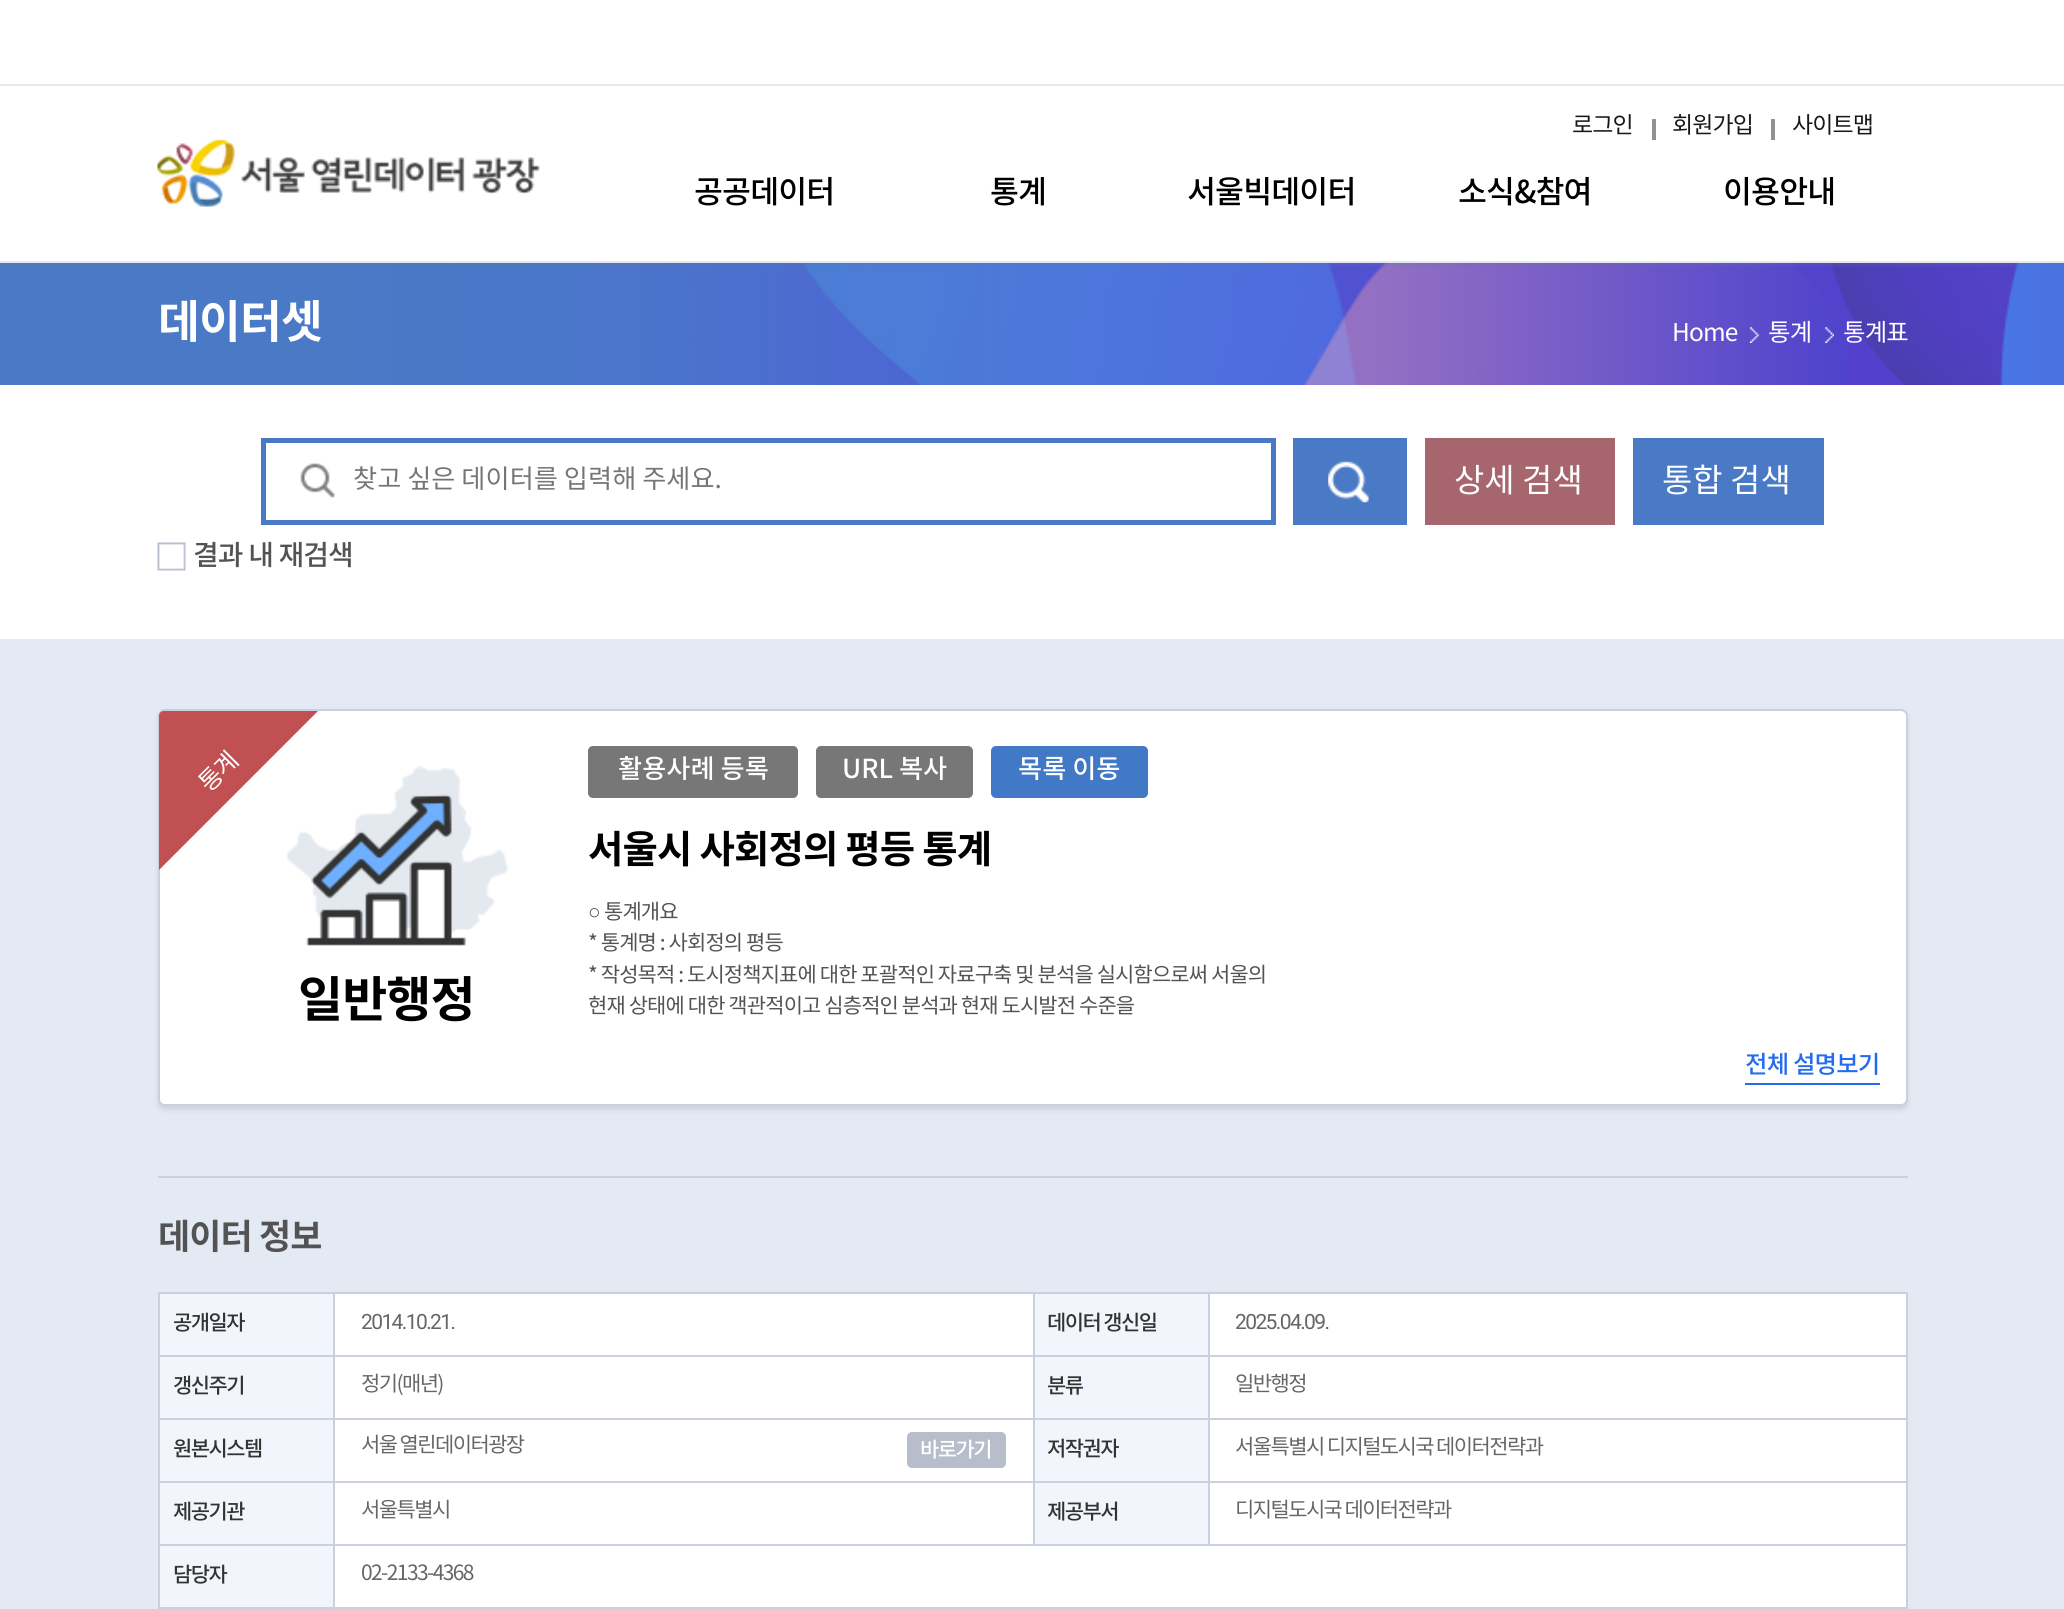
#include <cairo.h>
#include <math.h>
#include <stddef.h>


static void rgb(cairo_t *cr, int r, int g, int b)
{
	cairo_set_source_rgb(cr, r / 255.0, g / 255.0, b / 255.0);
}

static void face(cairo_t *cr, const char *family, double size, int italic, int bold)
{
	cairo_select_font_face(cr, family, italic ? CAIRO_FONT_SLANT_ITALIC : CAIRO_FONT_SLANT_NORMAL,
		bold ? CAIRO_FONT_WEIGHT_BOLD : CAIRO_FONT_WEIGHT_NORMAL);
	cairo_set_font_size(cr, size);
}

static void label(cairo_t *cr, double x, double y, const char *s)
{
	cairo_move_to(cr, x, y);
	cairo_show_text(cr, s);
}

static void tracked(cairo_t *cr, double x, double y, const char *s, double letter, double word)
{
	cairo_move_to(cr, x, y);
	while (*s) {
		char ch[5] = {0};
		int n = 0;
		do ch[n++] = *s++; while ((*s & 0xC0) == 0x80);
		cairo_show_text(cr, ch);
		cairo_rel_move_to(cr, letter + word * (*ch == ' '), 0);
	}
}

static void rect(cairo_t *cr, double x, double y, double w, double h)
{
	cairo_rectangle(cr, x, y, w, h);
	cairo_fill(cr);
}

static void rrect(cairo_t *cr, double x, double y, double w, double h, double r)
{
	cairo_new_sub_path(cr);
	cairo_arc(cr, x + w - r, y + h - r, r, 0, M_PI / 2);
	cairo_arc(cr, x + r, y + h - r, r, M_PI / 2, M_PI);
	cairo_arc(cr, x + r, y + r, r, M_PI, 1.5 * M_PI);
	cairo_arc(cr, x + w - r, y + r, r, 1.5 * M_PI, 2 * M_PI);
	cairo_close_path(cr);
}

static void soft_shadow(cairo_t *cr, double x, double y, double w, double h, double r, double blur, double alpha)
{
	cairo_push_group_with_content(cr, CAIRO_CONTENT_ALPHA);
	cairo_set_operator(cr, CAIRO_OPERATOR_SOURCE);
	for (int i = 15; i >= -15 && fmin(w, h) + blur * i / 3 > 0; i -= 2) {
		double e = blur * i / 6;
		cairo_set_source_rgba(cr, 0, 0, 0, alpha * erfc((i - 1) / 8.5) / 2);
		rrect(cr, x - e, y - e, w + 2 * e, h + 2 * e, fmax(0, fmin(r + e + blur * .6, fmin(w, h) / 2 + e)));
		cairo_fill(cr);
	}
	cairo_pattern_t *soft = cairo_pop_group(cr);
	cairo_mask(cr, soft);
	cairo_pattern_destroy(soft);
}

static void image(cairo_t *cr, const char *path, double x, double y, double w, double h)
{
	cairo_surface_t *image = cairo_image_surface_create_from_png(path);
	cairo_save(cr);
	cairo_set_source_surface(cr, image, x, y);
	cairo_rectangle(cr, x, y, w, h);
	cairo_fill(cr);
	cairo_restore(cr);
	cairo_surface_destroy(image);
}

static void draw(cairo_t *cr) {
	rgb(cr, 227, 234, 244);
	cairo_paint(cr);
	rgb(cr, 255, 255, 255);
	rect(cr, 0, 0, 2064, 261);
	rgb(cr, 228, 233, 240);
	rect(cr, 0, 261, 2064, 2);
	rect(cr, 0, 84, 2064, 2);
	face(cr, "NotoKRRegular", 23, 0, 0);
	rgb(cr, 24, 24, 24);
	tracked(cr, 1572, 133, "로그인", -0.9, 0);
	rgb(cr, 146, 146, 146);
	rect(cr, 1652, 119, 4, 21);
	rgb(cr, 24, 24, 24);
	tracked(cr, 1672, 133, "회원가입", -0.9, 0);
	rgb(cr, 146, 146, 146);
	rect(cr, 1771, 119, 4, 21);
	rgb(cr, 24, 24, 24);
	tracked(cr, 1792, 133, "사이트맵", -0.9, 0);
	image(cr, "image0.png", 157, 139, 383, 68);
	face(cr, "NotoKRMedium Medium", 31.5, 0, 0);
	rgb(cr, 0, 0, 0);
	tracked(cr, 694, 203, "공공데이터", -0.9, 0);
	tracked(cr, 990, 203, "통계", -0.9, 0);
	tracked(cr, 1187, 203, "서울빅데이터", -0.9, 0);
	tracked(cr, 1458, 203, "소식&참여", -0.9, 0);
	tracked(cr, 1723, 203, "이용안내", -0.9, 0);
	image(cr, "image1.png", 0, 263, 2064, 122);
	face(cr, "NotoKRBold", 45.5, 0, 1);
	rgb(cr, 255, 255, 255);
	tracked(cr, 158, 338, "데이터셋", -0.9, 0);
	face(cr, "NotoKRRegular", 24.5, 0, 0);
	tracked(cr, 1672, 341, "Home", -0.9, 0);
	image(cr, "image2.png", 1750, 327, 9, 16);
	tracked(cr, 1768, 341, "통계", -0.9, 0);
	image(cr, "image3.png", 1825, 327, 9, 16);
	tracked(cr, 1843, 341, "통계표", -0.9, 0);
	rect(cr, 0, 385, 2064, 254);
	image(cr, "image4.png", 300, 463, 35, 35);
	cairo_rectangle(cr, 263.5, 440.5, 1010, 82);
	rgb(cr, 74, 121, 198);
	cairo_set_line_width(cr, 5);
	cairo_stroke(cr);
	face(cr, "NotoKRRegular", 26.25, 0, 0);
	rgb(cr, 117, 117, 117);
	label(cr, 353, 488, "찾고 싶은 데이터를 입력해 주세요.");
	rgb(cr, 74, 121, 198);
	rect(cr, 1293, 438, 114, 87);
	image(cr, "image5.png", 1328, 461, 41, 42);
	rgb(cr, 167, 102, 110);
	rect(cr, 1425, 438, 190, 87);
	face(cr, "NotoKRRegular", 33, 0, 0);
	rgb(cr, 255, 255, 255);
	label(cr, 1454, 492, "상세 검색");
	rgb(cr, 74, 121, 198);
	rect(cr, 1633, 438, 191, 87);
	rgb(cr, 255, 255, 255);
	label(cr, 1662, 492, "통합 검색");
	image(cr, "image6.png", 157, 542, 29, 29);
	face(cr, "NotoKRMedium Medium", 28, 0, 0);
	rgb(cr, 83, 83, 83);
	tracked(cr, 193, 565, "결과 내 재검색", -0.9, 0);
	rgb(cr, 0, 0, 0);
	soft_shadow(cr, 158, 712, 1750, 398, 7, 2.5, 0.1);
	rgb(cr, 255, 255, 255);
	rrect(cr, 159, 710, 1748, 395, 6);
	cairo_fill_preserve(cr);
	rgb(cr, 202, 208, 221);
	cairo_set_line_width(cr, 2);
	cairo_stroke(cr);
	image(cr, "image7.png", 286, 766, 222, 180);
	rgb(cr, 193, 80, 82);
	cairo_new_path(cr);
	cairo_move_to(cr, 164, 711);
	cairo_line_to(cr, 318, 711);
	cairo_line_to(cr, 159, 870);
	cairo_line_to(cr, 159, 716);
	cairo_curve_to(cr, 159, 713, 161, 711, 164, 711);
	cairo_close_path(cr);
	cairo_fill(cr);
	face(cr, "NotoKRRegular", 24.5, 0, 0);
	rgb(cr, 255, 255, 255);
	cairo_save(cr);
	cairo_translate(cr, 209, 793);
	cairo_rotate(cr, -45 * M_PI / 180);
	tracked(cr, 0, 0, "통계", -0.9, 0);
	cairo_restore(cr);
	face(cr, "NotoKRBold", 49, 0, 1);
	rgb(cr, 0, 0, 0);
	tracked(cr, 298, 1017, "일반행정", -0.9, 0);
	rgb(cr, 119, 119, 119);
	rrect(cr, 588, 746, 210, 52, 5);
	cairo_fill(cr);
	face(cr, "NotoKRMedium Medium", 26.25, 0, 0);
	rgb(cr, 255, 255, 255);
	label(cr, 618, 778, "활용사례 등록");
	rgb(cr, 119, 119, 119);
	rrect(cr, 816, 746, 157, 52, 5);
	cairo_fill(cr);
	rgb(cr, 255, 255, 255);
	label(cr, 842, 778, "URL 복사");
	rgb(cr, 65, 121, 198);
	rrect(cr, 991, 746, 157, 52, 5);
	cairo_fill(cr);
	rgb(cr, 255, 255, 255);
	label(cr, 1018, 778, "목록 이동");
	face(cr, "NotoKRBold", 38.5, 0, 1);
	rgb(cr, 0, 0, 0);
	tracked(cr, 588, 863, "서울시 사회정의 평등 통계", -0.9, 0);
	face(cr, "Liberation Sans", 21, 0, 0);
	rgb(cr, 83, 83, 83);
	tracked(cr, 588, 919, "○", -0.9, 0);
	face(cr, "NotoKRRegular", 21, 0, 0);
	tracked(cr, 604, 919, "통계개요", -0.9, 0);
	tracked(cr, 588, 950, "* 통계명 : 사회정의 평등", -0.9, 0);
	tracked(cr, 588, 982, "* 작성목적 : 도시정책지표에 대한 포괄적인 자료구축 및 분석을 실시함으로써 서울의", -0.9, 0);
	tracked(cr, 588, 1013, "현재 상태에 대한 객관적이고 심층적인 분석과 현재 도시발전 수준을", -0.9, 0);
	rgb(cr, 35, 108, 239);
	rect(cr, 1745, 1083, 135, 2);
	face(cr, "NotoKRMedium Medium", 24.5, 0, 0);
	tracked(cr, 1745, 1073, "전체 설명보기", -0.9, 0);
	rgb(cr, 202, 208, 221);
	rect(cr, 158, 1176, 1750, 2);
	face(cr, "NotoKRBold", 35, 0, 1);
	rgb(cr, 83, 83, 83);
	tracked(cr, 158, 1249, "데이터 정보", -0.9, 0);
	rgb(cr, 202, 208, 221);
	rect(cr, 158, 1292, 1750, 2);
	rect(cr, 1906, 1292, 2, 317);
	rect(cr, 158, 1292, 2, 317);
	rgb(cr, 242, 245, 251);
	rect(cr, 160, 1294, 173, 61);
	face(cr, "NotoKRMedium Medium", 21, 0, 0);
	rgb(cr, 51, 51, 51);
	tracked(cr, 173, 1330, "공개일자", -1.6, 0);
	rgb(cr, 255, 255, 255);
	rect(cr, 335, 1294, 698, 61);
	rgb(cr, 202, 208, 221);
	rect(cr, 1208, 1355, 700, 2);
	rect(cr, 1208, 1418, 700, 2);
	rect(cr, 1208, 1481, 700, 2);
	rect(cr, 333, 1544, 1575, 2);
	rect(cr, 1208, 1481, 2, 64);
	rect(cr, 1033, 1481, 176, 2);
	rect(cr, 1208, 1418, 2, 64);
	rect(cr, 1033, 1418, 176, 2);
	rect(cr, 1208, 1355, 2, 64);
	rect(cr, 1033, 1355, 176, 2);
	rect(cr, 1033, 1481, 2, 64);
	rect(cr, 333, 1481, 701, 2);
	rect(cr, 1033, 1418, 2, 64);
	rect(cr, 333, 1418, 701, 2);
	rect(cr, 1033, 1355, 2, 64);
	rect(cr, 333, 1355, 701, 2);
	rect(cr, 158, 1607, 1750, 2);
	rect(cr, 333, 1544, 2, 64);
	rect(cr, 158, 1544, 176, 2);
	rect(cr, 333, 1481, 2, 64);
	rect(cr, 158, 1481, 176, 2);
	rect(cr, 333, 1418, 2, 64);
	rect(cr, 158, 1418, 176, 2);
	rect(cr, 333, 1355, 2, 64);
	rect(cr, 158, 1355, 176, 2);
	rect(cr, 333, 1292, 2, 64);
	face(cr, "Roboto", 21, 0, 0);
	rgb(cr, 102, 102, 102);
	tracked(cr, 361, 1329, "2014.10.21.", -1.6, 0);
	rgb(cr, 242, 245, 251);
	rect(cr, 1035, 1294, 173, 61);
	rgb(cr, 202, 208, 221);
	rect(cr, 1033, 1292, 2, 64);
	face(cr, "NotoKRMedium Medium", 21, 0, 0);
	rgb(cr, 51, 51, 51);
	tracked(cr, 1047, 1330, "데이터 갱신일", -1.6, 0);
	rgb(cr, 255, 255, 255);
	rect(cr, 1210, 1294, 696, 61);
	rgb(cr, 202, 208, 221);
	rect(cr, 1208, 1292, 2, 64);
	face(cr, "Roboto", 21, 0, 0);
	rgb(cr, 102, 102, 102);
	tracked(cr, 1235, 1329, "2025.04.09.", -1.6, 0);
	rgb(cr, 242, 245, 251);
	rect(cr, 160, 1357, 173, 61);
	face(cr, "NotoKRMedium Medium", 21, 0, 0);
	rgb(cr, 51, 51, 51);
	tracked(cr, 173, 1393, "갱신주기", -1.6, 0);
	rgb(cr, 255, 255, 255);
	rect(cr, 335, 1357, 698, 61);
	face(cr, "NotoKRRegular", 21, 0, 0);
	rgb(cr, 102, 102, 102);
	tracked(cr, 361, 1391, "정기(매년)", -1.6, 0);
	rgb(cr, 242, 245, 251);
	rect(cr, 1035, 1357, 173, 61);
	face(cr, "NotoKRMedium Medium", 21, 0, 0);
	rgb(cr, 51, 51, 51);
	tracked(cr, 1047, 1393, "분류", -1.6, 0);
	rgb(cr, 255, 255, 255);
	rect(cr, 1210, 1357, 696, 61);
	face(cr, "NotoKRRegular", 21, 0, 0);
	rgb(cr, 102, 102, 102);
	tracked(cr, 1235, 1391, "일반행정", -1.6, 0);
	rgb(cr, 242, 245, 251);
	rect(cr, 160, 1420, 173, 61);
	face(cr, "NotoKRMedium Medium", 21, 0, 0);
	rgb(cr, 51, 51, 51);
	tracked(cr, 173, 1456, "원본시스템", -1.6, 0);
	rgb(cr, 255, 255, 255);
	rect(cr, 335, 1420, 698, 61);
	face(cr, "NotoKRRegular", 21, 0, 0);
	rgb(cr, 102, 102, 102);
	tracked(cr, 361, 1452, "서울 열린데이터광장", -1.6, 0);
	rgb(cr, 183, 189, 203);
	rrect(cr, 907, 1432, 99, 36, 5);
	cairo_fill(cr);
	face(cr, "NotoKRMedium Medium", 21, 0, 0);
	rgb(cr, 255, 255, 255);
	tracked(cr, 920, 1457, "바로가기", -1.6, 0);
	rgb(cr, 242, 245, 251);
	rect(cr, 1035, 1420, 173, 61);
	rgb(cr, 51, 51, 51);
	tracked(cr, 1047, 1456, "저작권자", -1.6, 0);
	rgb(cr, 255, 255, 255);
	rect(cr, 1210, 1420, 696, 61);
	face(cr, "NotoKRRegular", 21, 0, 0);
	rgb(cr, 102, 102, 102);
	tracked(cr, 1235, 1454, "서울특별시 디지털도시국 데이터전략과", -1.6, 0);
	rgb(cr, 242, 245, 251);
	rect(cr, 160, 1483, 173, 61);
	face(cr, "NotoKRMedium Medium", 21, 0, 0);
	rgb(cr, 51, 51, 51);
	tracked(cr, 173, 1519, "제공기관", -1.6, 0);
	rgb(cr, 255, 255, 255);
	rect(cr, 335, 1483, 698, 61);
	face(cr, "NotoKRRegular", 21, 0, 0);
	rgb(cr, 102, 102, 102);
	tracked(cr, 361, 1517, "서울특별시", -1.6, 0);
	rgb(cr, 242, 245, 251);
	rect(cr, 1035, 1483, 173, 61);
	face(cr, "NotoKRMedium Medium", 21, 0, 0);
	rgb(cr, 51, 51, 51);
	tracked(cr, 1047, 1519, "제공부서", -1.6, 0);
	rgb(cr, 255, 255, 255);
	rect(cr, 1210, 1483, 696, 61);
	face(cr, "NotoKRRegular", 21, 0, 0);
	rgb(cr, 102, 102, 102);
	tracked(cr, 1235, 1517, "디지털도시국 데이터전략과", -1.6, 0);
	rgb(cr, 242, 245, 251);
	rect(cr, 160, 1546, 173, 61);
	face(cr, "NotoKRMedium Medium", 21, 0, 0);
	rgb(cr, 51, 51, 51);
	tracked(cr, 173, 1582, "담당자", -1.6, 0);
	rgb(cr, 255, 255, 255);
	rect(cr, 335, 1546, 1571, 61);
	face(cr, "NotoKRRegular", 21, 0, 0);
	rgb(cr, 102, 102, 102);
	tracked(cr, 361, 1580, "02-2133-4368", -1.6, 0);
}

int main(void) {
	cairo_surface_t *surface = cairo_image_surface_create(CAIRO_FORMAT_RGB24, 2064, 1609);
	cairo_t *cr = cairo_create(surface);
	cairo_font_options_t *options = cairo_font_options_create();
	cairo_font_options_set_hint_metrics(options, CAIRO_HINT_METRICS_OFF);
	cairo_font_options_set_hint_style(options, CAIRO_HINT_STYLE_NONE);
	cairo_set_font_options(cr, options);
	cairo_set_miter_limit(cr, 4);
	draw(cr);
	cairo_surface_write_to_png(surface, "render.png");
	cairo_font_options_destroy(options);
	cairo_destroy(cr);
	cairo_surface_destroy(surface);
	return 0;
}
